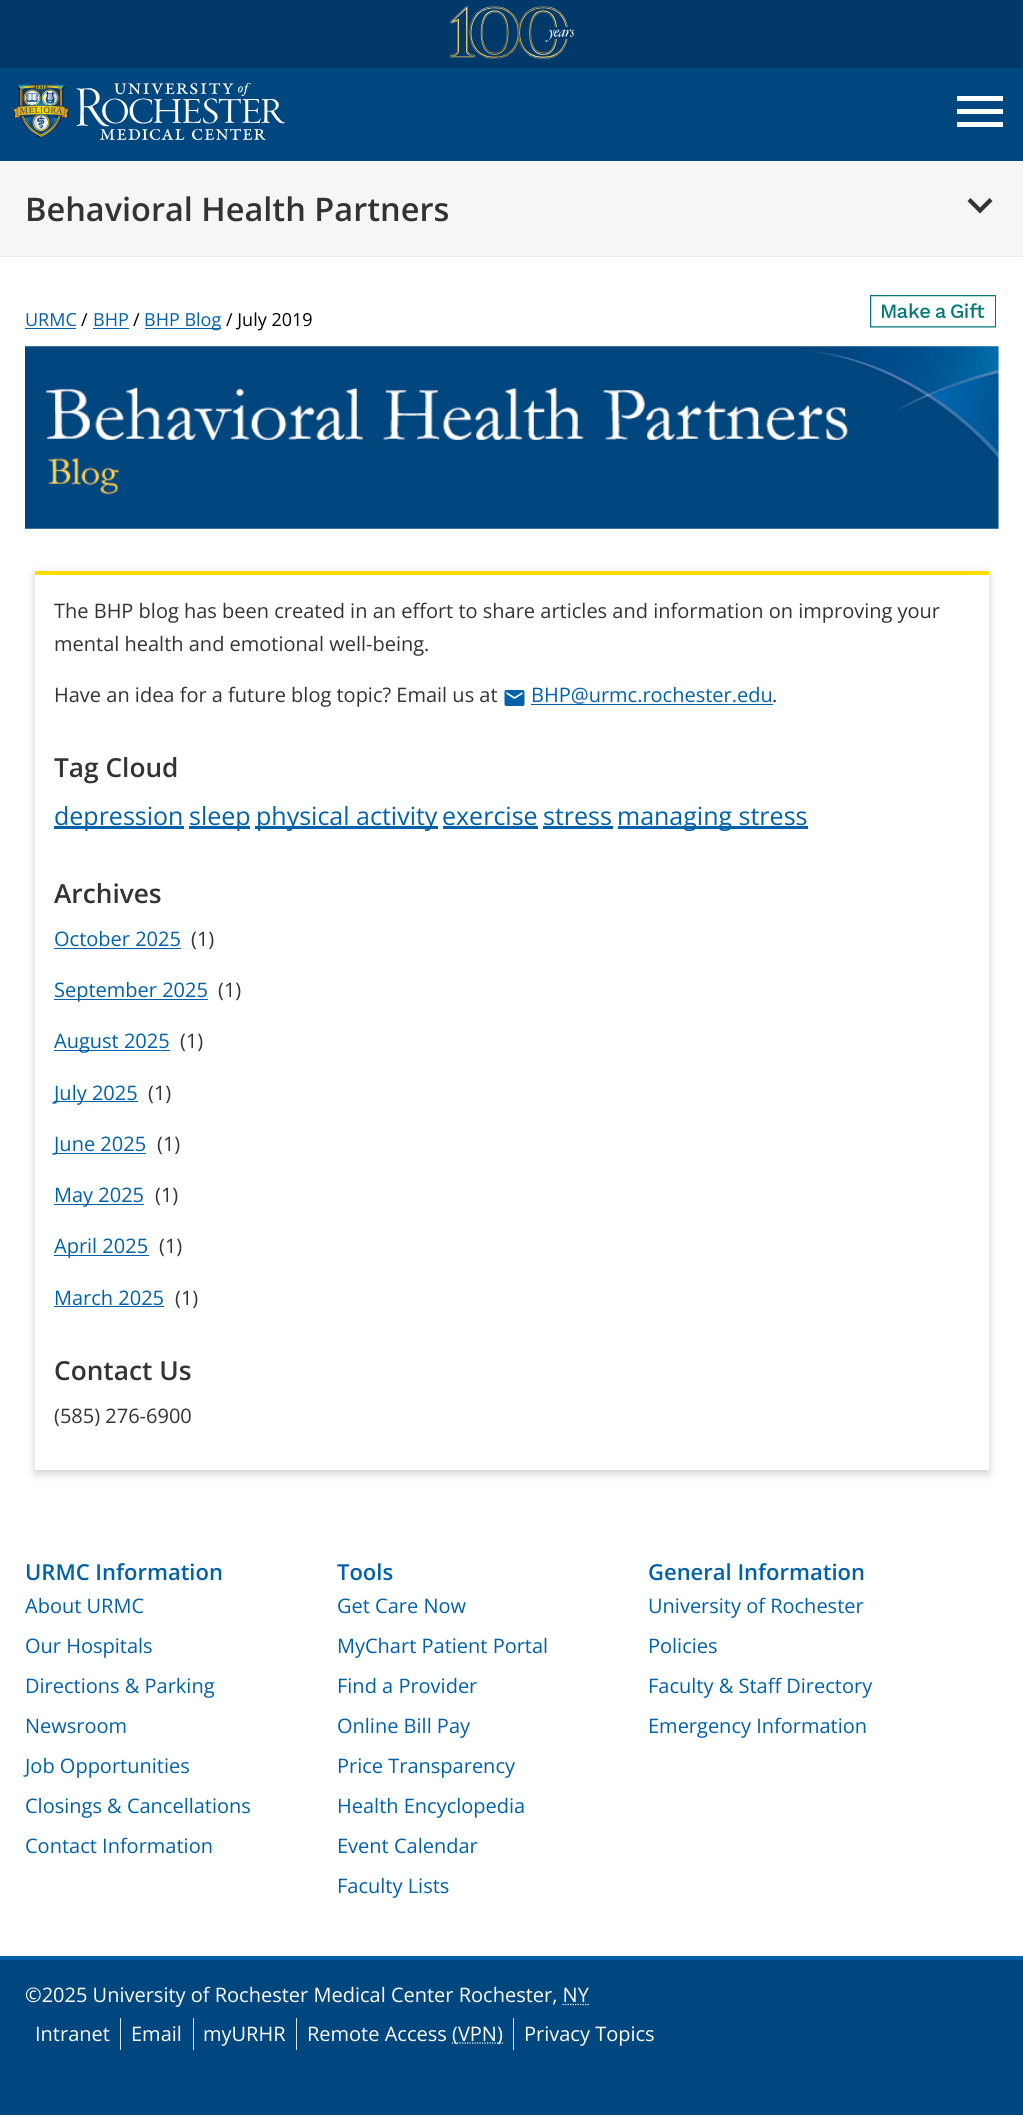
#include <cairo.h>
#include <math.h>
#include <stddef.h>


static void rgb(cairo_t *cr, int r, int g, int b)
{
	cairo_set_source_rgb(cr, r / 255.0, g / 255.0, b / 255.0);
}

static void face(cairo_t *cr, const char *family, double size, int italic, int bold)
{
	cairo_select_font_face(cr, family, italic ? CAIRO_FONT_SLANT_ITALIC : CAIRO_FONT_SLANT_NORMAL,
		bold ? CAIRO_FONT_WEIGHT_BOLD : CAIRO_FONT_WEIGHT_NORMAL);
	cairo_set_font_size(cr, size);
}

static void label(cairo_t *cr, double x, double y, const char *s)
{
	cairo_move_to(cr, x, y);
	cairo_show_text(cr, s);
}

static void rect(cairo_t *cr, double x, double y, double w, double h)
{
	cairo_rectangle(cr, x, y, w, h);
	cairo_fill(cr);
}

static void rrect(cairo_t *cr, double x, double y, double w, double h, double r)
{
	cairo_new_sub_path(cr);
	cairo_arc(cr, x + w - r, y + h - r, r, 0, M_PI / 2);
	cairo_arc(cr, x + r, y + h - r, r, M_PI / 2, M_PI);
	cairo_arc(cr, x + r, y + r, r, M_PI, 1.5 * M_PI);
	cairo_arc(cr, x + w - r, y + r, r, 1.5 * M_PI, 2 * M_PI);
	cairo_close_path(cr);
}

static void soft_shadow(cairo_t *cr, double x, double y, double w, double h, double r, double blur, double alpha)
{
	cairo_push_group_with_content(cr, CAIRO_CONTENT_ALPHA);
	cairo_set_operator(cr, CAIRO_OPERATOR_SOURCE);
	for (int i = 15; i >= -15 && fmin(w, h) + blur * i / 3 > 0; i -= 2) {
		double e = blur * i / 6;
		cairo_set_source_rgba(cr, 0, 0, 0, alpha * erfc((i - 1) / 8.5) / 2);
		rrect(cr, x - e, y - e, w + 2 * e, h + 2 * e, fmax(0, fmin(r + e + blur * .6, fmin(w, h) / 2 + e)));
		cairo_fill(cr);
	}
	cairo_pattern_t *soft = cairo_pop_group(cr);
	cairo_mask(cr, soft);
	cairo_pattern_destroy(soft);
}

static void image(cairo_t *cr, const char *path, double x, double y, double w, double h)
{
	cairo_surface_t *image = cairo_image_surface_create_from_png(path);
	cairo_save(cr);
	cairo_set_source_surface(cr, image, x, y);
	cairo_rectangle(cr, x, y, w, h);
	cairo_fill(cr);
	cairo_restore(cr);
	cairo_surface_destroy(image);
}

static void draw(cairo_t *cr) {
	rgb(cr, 0, 70, 127);
	cairo_paint(cr);
	rgb(cr, 2, 57, 107);
	rect(cr, 0, 0, 1023, 68);
	image(cr, "image0.png", 450, 6, 124, 53);
	image(cr, "image1.png", 13, 83, 272, 57);
	rgb(cr, 255, 255, 255);
	cairo_new_path(cr);
	cairo_move_to(cr, 957, 96);
	cairo_line_to(cr, 1003, 96);
	cairo_line_to(cr, 1003, 101);
	cairo_line_to(cr, 957, 101);
	cairo_close_path(cr);
	cairo_move_to(cr, 957, 114);
	cairo_line_to(cr, 957, 109);
	cairo_line_to(cr, 1003, 109);
	cairo_line_to(cr, 1003, 114);
	cairo_close_path(cr);
	cairo_move_to(cr, 957, 127);
	cairo_line_to(cr, 957, 122);
	cairo_line_to(cr, 1003, 122);
	cairo_line_to(cr, 1003, 127);
	cairo_close_path(cr);
	cairo_fill(cr);
	rect(cr, 0, 257, 1023, 1699);
	rgb(cr, 246, 246, 246);
	rect(cr, 0, 161, 1023, 95);
	face(cr, "Open Sans SemiBold", 32.5, 0, 0);
	rgb(cr, 51, 51, 51);
	label(cr, 25, 221, "Behavioral Health Partners");
	cairo_new_path(cr);
	cairo_move_to(cr, 970.5, 198);
	cairo_line_to(cr, 980, 207.5);
	cairo_line_to(cr, 989.5, 198);
	cairo_line_to(cr, 992.5, 201);
	cairo_line_to(cr, 980, 213.5);
	cairo_line_to(cr, 967.5, 201);
	cairo_close_path(cr);
	cairo_fill(cr);
	rgb(cr, 236, 236, 236);
	rect(cr, 0, 256, 1023, 1);
	face(cr, "Open Sans", 18, 0, 0);
	rgb(cr, 0, 97, 171);
	label(cr, 25, 326, "URMC");
	rect(cr, 25, 328, 51, 1);
	rgb(cr, 0, 0, 0);
	label(cr, 81, 326, "/");
	rgb(cr, 0, 97, 171);
	label(cr, 93, 326, "BHP");
	rect(cr, 93, 328, 36, 1);
	rgb(cr, 0, 0, 0);
	label(cr, 133, 326, "/");
	rgb(cr, 0, 97, 171);
	rect(cr, 145, 328, 76, 1);
	label(cr, 144, 326, "BHP Blog");
	rgb(cr, 0, 0, 0);
	label(cr, 226, 326, "/ July 2019");
	image(cr, "image2.png", 870, 295, 126, 33);
	image(cr, "image3.png", 25, 346, 974, 183);
	rgb(cr, 0, 0, 0);
	soft_shadow(cr, 35, 574, 954, 899, 0, 4.5, 0.2);
	rgb(cr, 255, 255, 255);
	rect(cr, 35, 575, 954, 895);
	rgb(cr, 255, 221, 0);
	rect(cr, 35, 571, 954, 4);
	face(cr, "Open Sans", 20, 0, 0);
	rgb(cr, 51, 51, 51);
	label(cr, 54, 618, "The BHP blog has been created in an effort to share articles and information on improving your");
	label(cr, 54, 651, "mental health and emotional well-being.");
	label(cr, 54, 702, "Have an idea for a future blog topic? Email us at");
	image(cr, "image4.png", 504, 690, 21, 16);
	rgb(cr, 0, 97, 171);
	label(cr, 531, 702, "BHP@urmc.rochester.edu");
	rect(cr, 531, 704, 242, 1);
	rgb(cr, 51, 51, 51);
	label(cr, 772, 702, ".");
	face(cr, "Open Sans SemiBold", 26.25, 0, 0);
	label(cr, 54, 777, "Tag Cloud");
	rgb(cr, 0, 97, 171);
	rect(cr, 54, 826, 130, 3);
	face(cr, "Open Sans", 25, 0, 0);
	label(cr, 54, 825, "depression");
	rect(cr, 189, 826, 61, 3);
	label(cr, 189, 825, "sleep");
	rect(cr, 255, 826, 183, 3);
	label(cr, 256, 825, "physical activity");
	label(cr, 442, 825, "exercise");
	rect(cr, 443, 826, 95, 3);
	label(cr, 543, 825, "stress");
	rect(cr, 543, 826, 70, 3);
	rect(cr, 618, 826, 190, 3);
	label(cr, 617, 825, "managing stress");
	face(cr, "Open Sans SemiBold", 26.25, 0, 0);
	rgb(cr, 51, 51, 51);
	label(cr, 54, 903, "Archives");
	face(cr, "Open Sans", 20, 0, 0);
	rgb(cr, 0, 97, 171);
	label(cr, 54, 946, "October 2025");
	rect(cr, 54, 948, 127, 1);
	rgb(cr, 51, 51, 51);
	label(cr, 191, 946, "(1)");
	rgb(cr, 0, 97, 171);
	rect(cr, 54, 999, 154, 1);
	label(cr, 54, 997, "September 2025");
	rgb(cr, 51, 51, 51);
	label(cr, 218, 997, "(1)");
	rgb(cr, 0, 97, 171);
	rect(cr, 54, 1050, 116, 1);
	label(cr, 54, 1048, "August 2025");
	rgb(cr, 51, 51, 51);
	label(cr, 180, 1048, "(1)");
	rgb(cr, 0, 97, 171);
	rect(cr, 54, 1101, 84, 1);
	label(cr, 54, 1100, "July 2025");
	rgb(cr, 51, 51, 51);
	label(cr, 148, 1100, "(1)");
	rgb(cr, 0, 97, 171);
	rect(cr, 54, 1153, 92, 1);
	label(cr, 54, 1151, "June 2025");
	rgb(cr, 51, 51, 51);
	label(cr, 157, 1151, "(1)");
	rgb(cr, 0, 97, 171);
	rect(cr, 54, 1204, 90, 1);
	label(cr, 54, 1202, "May 2025");
	rgb(cr, 51, 51, 51);
	label(cr, 155, 1202, "(1)");
	rgb(cr, 0, 97, 171);
	rect(cr, 54, 1255, 95, 1);
	label(cr, 54, 1253, "April 2025");
	rgb(cr, 51, 51, 51);
	label(cr, 159, 1253, "(1)");
	rgb(cr, 0, 97, 171);
	label(cr, 54, 1305, "March 2025");
	rect(cr, 54, 1306, 110, 1);
	rgb(cr, 51, 51, 51);
	label(cr, 175, 1305, "(1)");
	face(cr, "Open Sans SemiBold", 26.25, 0, 0);
	label(cr, 54, 1380, "Contact Us");
	face(cr, "Open Sans", 20, 0, 0);
	label(cr, 54, 1423, "(585) 276-6900");
	face(cr, "Open Sans SemiBold", 22, 0, 0);
	rgb(cr, 0, 97, 171);
	label(cr, 25, 1580, "URMC Information");
	face(cr, "Open Sans", 20, 0, 0);
	label(cr, 25, 1613, "About URMC");
	label(cr, 25, 1653, "Our Hospitals");
	label(cr, 25, 1693, "Directions & Parking");
	label(cr, 25, 1733, "Newsroom");
	label(cr, 25, 1773, "Job Opportunities");
	label(cr, 25, 1813, "Closings & Cancellations");
	label(cr, 25, 1853, "Contact Information");
	face(cr, "Open Sans SemiBold", 22, 0, 0);
	label(cr, 337, 1580, "Tools");
	face(cr, "Open Sans", 20, 0, 0);
	label(cr, 337, 1613, "Get Care Now");
	label(cr, 337, 1653, "MyChart Patient Portal");
	label(cr, 337, 1693, "Find a Provider");
	label(cr, 337, 1733, "Online Bill Pay");
	label(cr, 337, 1773, "Price Transparency");
	label(cr, 337, 1813, "Health Encyclopedia");
	label(cr, 337, 1853, "Event Calendar");
	label(cr, 337, 1893, "Faculty Lists");
	face(cr, "Open Sans SemiBold", 22, 0, 0);
	label(cr, 648, 1580, "General Information");
	face(cr, "Open Sans", 20, 0, 0);
	label(cr, 648, 1613, "University of Rochester");
	label(cr, 648, 1653, "Policies");
	label(cr, 648, 1693, "Faculty & Staff Directory");
	label(cr, 648, 1733, "Emergency Information");
	rect(cr, 0, 1956, 1023, 4);
	rgb(cr, 255, 255, 255);
	label(cr, 25, 2002, "©2025 University of Rochester Medical Center Rochester, NY");
	cairo_new_path(cr);
	cairo_move_to(cr, 562.5, 2004.5);
	cairo_line_to(cr, 589, 2004.5);
	cairo_set_line_width(cr, 1.2);
	cairo_set_dash(cr, (double[]){1.25, 1.25}, 2, 0);
	cairo_stroke(cr);
	label(cr, 35, 2041, "Intranet");
	rgb(cr, 207, 231, 252);
	rect(cr, 120, 2018, 1, 32);
	rgb(cr, 255, 255, 255);
	label(cr, 131, 2041, "Email");
	rgb(cr, 207, 231, 252);
	rect(cr, 193, 2018, 1, 32);
	rgb(cr, 255, 255, 255);
	label(cr, 203, 2041, "myURHR");
	rgb(cr, 207, 231, 252);
	rect(cr, 296, 2018, 1, 32);
	rgb(cr, 255, 255, 255);
	label(cr, 307, 2041, "Remote Access");
	cairo_new_path(cr);
	cairo_move_to(cr, 452, 2043);
	cairo_line_to(cr, 503, 2043);
	cairo_stroke(cr);
	label(cr, 452, 2041, "(VPN)");
	rgb(cr, 207, 231, 252);
	rect(cr, 513, 2018, 1, 32);
	rgb(cr, 255, 255, 255);
	label(cr, 524, 2041, "Privacy Topics");
}

int main(void) {
	cairo_surface_t *surface = cairo_image_surface_create(CAIRO_FORMAT_RGB24, 1023, 2115);
	cairo_t *cr = cairo_create(surface);
	cairo_font_options_t *options = cairo_font_options_create();
	cairo_font_options_set_hint_metrics(options, CAIRO_HINT_METRICS_OFF);
	cairo_font_options_set_hint_style(options, CAIRO_HINT_STYLE_NONE);
	cairo_set_font_options(cr, options);
	cairo_set_miter_limit(cr, 4);
	draw(cr);
	cairo_surface_write_to_png(surface, "render.png");
	cairo_font_options_destroy(options);
	cairo_destroy(cr);
	cairo_surface_destroy(surface);
	return 0;
}
